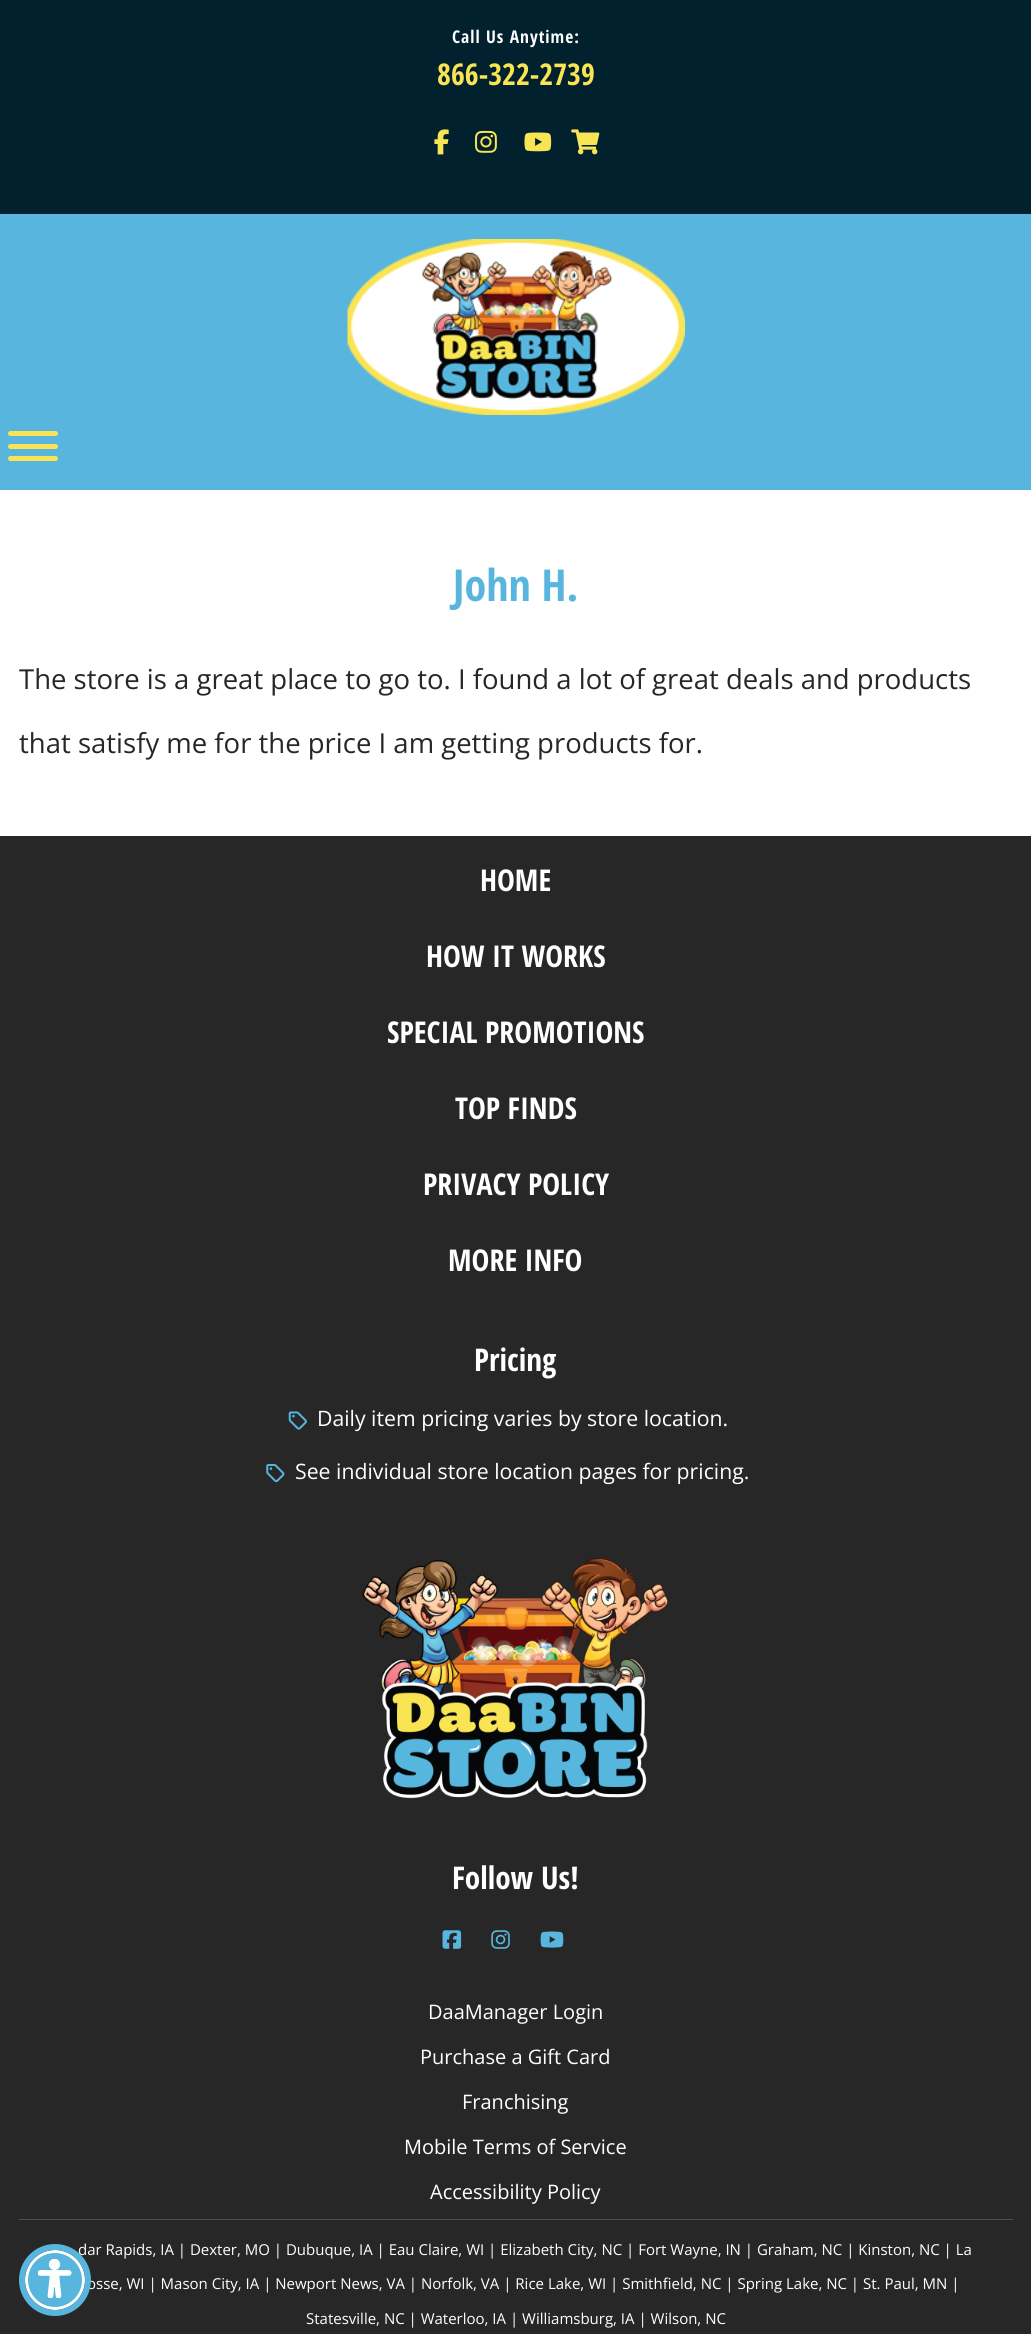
#include <cairo.h>
#include <math.h>
#include <stddef.h>


static void rgb(cairo_t *cr, int r, int g, int b)
{
	cairo_set_source_rgb(cr, r / 255.0, g / 255.0, b / 255.0);
}

static void face(cairo_t *cr, const char *family, double size, int italic, int bold)
{
	cairo_select_font_face(cr, family, italic ? CAIRO_FONT_SLANT_ITALIC : CAIRO_FONT_SLANT_NORMAL,
		bold ? CAIRO_FONT_WEIGHT_BOLD : CAIRO_FONT_WEIGHT_NORMAL);
	cairo_set_font_size(cr, size);
}

static void label(cairo_t *cr, double x, double y, const char *s)
{
	cairo_move_to(cr, x, y);
	cairo_show_text(cr, s);
}

static void tracked(cairo_t *cr, double x, double y, const char *s, double letter, double word)
{
	cairo_move_to(cr, x, y);
	while (*s) {
		char ch[5] = {0};
		int n = 0;
		do ch[n++] = *s++; while ((*s & 0xC0) == 0x80);
		cairo_show_text(cr, ch);
		cairo_rel_move_to(cr, letter + word * (*ch == ' '), 0);
	}
}

static void rect(cairo_t *cr, double x, double y, double w, double h)
{
	cairo_rectangle(cr, x, y, w, h);
	cairo_fill(cr);
}

static void rrect(cairo_t *cr, double x, double y, double w, double h, double r)
{
	cairo_new_sub_path(cr);
	cairo_arc(cr, x + w - r, y + h - r, r, 0, M_PI / 2);
	cairo_arc(cr, x + r, y + h - r, r, M_PI / 2, M_PI);
	cairo_arc(cr, x + r, y + r, r, M_PI, 1.5 * M_PI);
	cairo_arc(cr, x + w - r, y + r, r, 1.5 * M_PI, 2 * M_PI);
	cairo_close_path(cr);
}

static void soft_shadow(cairo_t *cr, double x, double y, double w, double h, double r, double blur, double alpha)
{
	cairo_push_group_with_content(cr, CAIRO_CONTENT_ALPHA);
	cairo_set_operator(cr, CAIRO_OPERATOR_SOURCE);
	for (int i = 15; i >= -15 && fmin(w, h) + blur * i / 3 > 0; i -= 2) {
		double e = blur * i / 6;
		cairo_set_source_rgba(cr, 0, 0, 0, alpha * erfc((i - 1) / 8.5) / 2);
		rrect(cr, x - e, y - e, w + 2 * e, h + 2 * e, fmax(0, fmin(r + e + blur * .6, fmin(w, h) / 2 + e)));
		cairo_fill(cr);
	}
	cairo_pattern_t *soft = cairo_pop_group(cr);
	cairo_mask(cr, soft);
	cairo_pattern_destroy(soft);
}

static void image(cairo_t *cr, const char *path, double x, double y, double w, double h)
{
	cairo_surface_t *image = cairo_image_surface_create_from_png(path);
	cairo_save(cr);
	cairo_set_source_surface(cr, image, x, y);
	cairo_rectangle(cr, x, y, w, h);
	cairo_fill(cr);
	cairo_restore(cr);
	cairo_surface_destroy(image);
}

static void draw(cairo_t *cr) {
	rgb(cr, 255, 255, 255);
	cairo_paint(cr);
	rgb(cr, 88, 181, 222);
	rect(cr, 0, 214, 1031, 276);
	rgb(cr, 0, 33, 45);
	rect(cr, 0, 0, 1031, 214);
	face(cr, "Open Sans Condensed", 17.5, 0, 1);
	rgb(cr, 255, 255, 255);
	tracked(cr, 452, 43, "Call Us Anytime:", 1, 0);
	face(cr, "Open Sans Condensed", 30, 0, 1);
	rgb(cr, 250, 228, 84);
	label(cr, 437, 85, "866-322-2739");
	image(cr, "image0.png", 434, 129, 15, 26);
	image(cr, "image1.png", 475, 130, 22, 23);
	image(cr, "image2.png", 524, 132, 28, 20);
	image(cr, "image3.png", 571, 129, 29, 26);
	image(cr, "image4.png", 347, 239, 338, 176);
	rrect(cr, 8, 431, 50, 5, 2.5);
	cairo_fill(cr);
	rrect(cr, 8, 444, 50, 5, 2.5);
	cairo_fill(cr);
	rrect(cr, 8, 456, 50, 5, 2.5);
	cairo_fill(cr);
	face(cr, "Open Sans Condensed", 44, 0, 1);
	rgb(cr, 88, 181, 222);
	label(cr, 453, 601, "John H.");
	face(cr, "Open Sans", 27.5, 0, 0);
	rgb(cr, 39, 39, 39);
	label(cr, 19, 689, "The store is a great place to go to. I found a lot of great deals and products");
	label(cr, 19, 753, "that satisfy me for the price I am getting products for.");
	rect(cr, 0, 836, 1031, 1498);
	rgb(cr, 93, 100, 148);
	soft_shadow(cr, 25, 2253, 60, 60, 30, 2.5, 0.2);
	face(cr, "Open Sans", 15, 0, 0);
	rgb(cr, 255, 255, 255);
	label(cr, 78, 2255, "dar Rapids, IA | Dexter, MO | Dubuque, IA | Eau Claire, WI | Elizabeth City, NC | Fort Wayne, IN | Graham, NC | Kinston, NC | La");
	rgb(cr, 88, 181, 222);
	cairo_new_path(cr);
	cairo_arc(cr, 55, 2280, 28.5, 0, 2 * M_PI);
	cairo_fill_preserve(cr);
	rgb(cr, 255, 255, 255);
	cairo_set_line_width(cr, 3);
	cairo_stroke(cr);
	label(cr, 87, 2289, "osse, WI | Mason City, IA | Newport News, VA | Norfolk, VA | Rice Lake, WI | Smithfield, NC | Spring Lake, NC | St. Paul, MN |");
	cairo_new_path(cr);
	cairo_arc(cr, 55, 2280, 33, 0, 2 * M_PI);
	rgb(cr, 88, 181, 222);
	cairo_set_line_width(cr, 6);
	cairo_stroke(cr);
	image(cr, "image5.png", 38, 2259, 34, 39);
	face(cr, "Open Sans Condensed", 30, 0, 1);
	rgb(cr, 255, 255, 255);
	label(cr, 480, 891, "HOME");
	label(cr, 426, 967, "HOW IT WORKS");
	label(cr, 387, 1043, "SPECIAL PROMOTIONS");
	label(cr, 455, 1119, "TOP FINDS");
	label(cr, 423, 1195, "PRIVACY POLICY");
	label(cr, 448, 1271, "MORE INFO");
	face(cr, "Open Sans Condensed", 31.25, 0, 1);
	label(cr, 474, 1371, "Pricing");
	image(cr, "image6.png", 288, 1411, 19, 19);
	face(cr, "Open Sans", 21.25, 0, 0);
	label(cr, 317, 1426, "Daily item pricing varies by store location.");
	image(cr, "image7.png", 266, 1464, 19, 19);
	label(cr, 295, 1479, "See individual store location pages for pricing.");
	image(cr, "image8.png", 362, 1557, 307, 242);
	face(cr, "Open Sans Condensed", 31.25, 0, 1);
	label(cr, 452, 1889, "Follow Us!");
	image(cr, "image9.png", 442, 1930, 20, 19);
	image(cr, "image10.png", 491, 1930, 19, 19);
	image(cr, "image11.png", 540, 1931, 24, 17);
	face(cr, "Open Sans", 20, 0, 0);
	label(cr, 428, 2019, "DaaManager Login");
	label(cr, 420, 2064, "Purchase a Gift Card");
	label(cr, 462, 2109, "Franchising");
	label(cr, 404, 2154, "Mobile Terms of Service");
	label(cr, 430, 2199, "Accessibility Policy");
	rgb(cr, 79, 79, 79);
	rect(cr, 19, 2219, 994, 1);
	face(cr, "Open Sans", 15, 0, 0);
	rgb(cr, 255, 255, 255);
	label(cr, 306, 2324, "Statesville, NC | Waterloo, IA | Williamsburg, IA | Wilson, NC");
}

int main(void) {
	cairo_surface_t *surface = cairo_image_surface_create(CAIRO_FORMAT_RGB24, 1031, 2334);
	cairo_t *cr = cairo_create(surface);
	cairo_font_options_t *options = cairo_font_options_create();
	cairo_font_options_set_hint_metrics(options, CAIRO_HINT_METRICS_OFF);
	cairo_font_options_set_hint_style(options, CAIRO_HINT_STYLE_NONE);
	cairo_set_font_options(cr, options);
	cairo_set_miter_limit(cr, 4);
	draw(cr);
	cairo_surface_write_to_png(surface, "render.png");
	cairo_font_options_destroy(options);
	cairo_destroy(cr);
	cairo_surface_destroy(surface);
	return 0;
}
